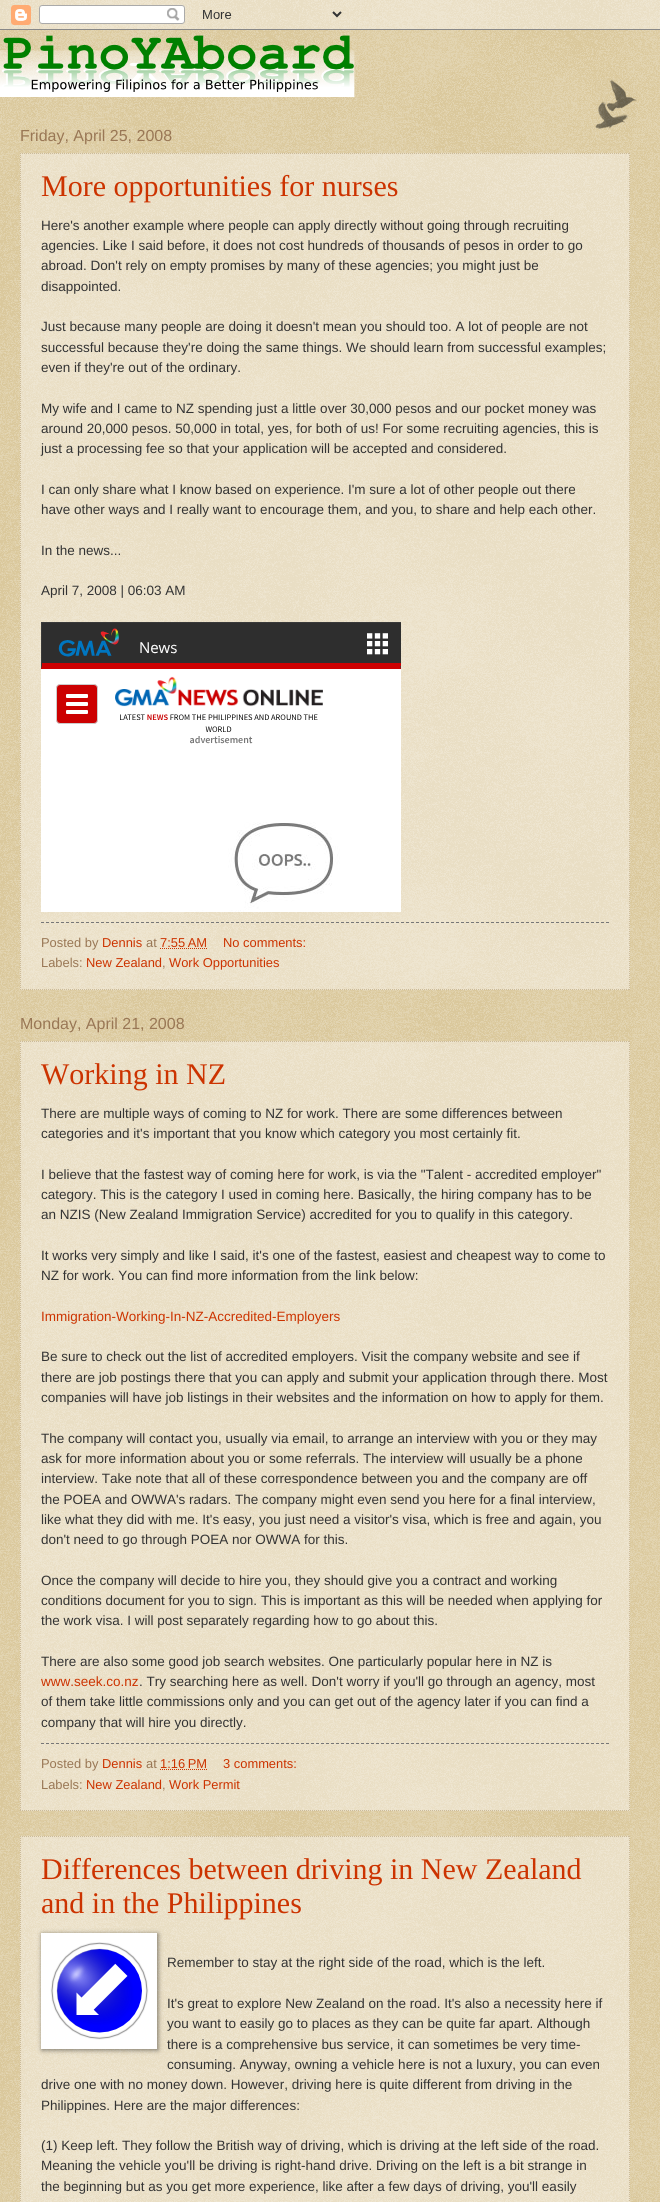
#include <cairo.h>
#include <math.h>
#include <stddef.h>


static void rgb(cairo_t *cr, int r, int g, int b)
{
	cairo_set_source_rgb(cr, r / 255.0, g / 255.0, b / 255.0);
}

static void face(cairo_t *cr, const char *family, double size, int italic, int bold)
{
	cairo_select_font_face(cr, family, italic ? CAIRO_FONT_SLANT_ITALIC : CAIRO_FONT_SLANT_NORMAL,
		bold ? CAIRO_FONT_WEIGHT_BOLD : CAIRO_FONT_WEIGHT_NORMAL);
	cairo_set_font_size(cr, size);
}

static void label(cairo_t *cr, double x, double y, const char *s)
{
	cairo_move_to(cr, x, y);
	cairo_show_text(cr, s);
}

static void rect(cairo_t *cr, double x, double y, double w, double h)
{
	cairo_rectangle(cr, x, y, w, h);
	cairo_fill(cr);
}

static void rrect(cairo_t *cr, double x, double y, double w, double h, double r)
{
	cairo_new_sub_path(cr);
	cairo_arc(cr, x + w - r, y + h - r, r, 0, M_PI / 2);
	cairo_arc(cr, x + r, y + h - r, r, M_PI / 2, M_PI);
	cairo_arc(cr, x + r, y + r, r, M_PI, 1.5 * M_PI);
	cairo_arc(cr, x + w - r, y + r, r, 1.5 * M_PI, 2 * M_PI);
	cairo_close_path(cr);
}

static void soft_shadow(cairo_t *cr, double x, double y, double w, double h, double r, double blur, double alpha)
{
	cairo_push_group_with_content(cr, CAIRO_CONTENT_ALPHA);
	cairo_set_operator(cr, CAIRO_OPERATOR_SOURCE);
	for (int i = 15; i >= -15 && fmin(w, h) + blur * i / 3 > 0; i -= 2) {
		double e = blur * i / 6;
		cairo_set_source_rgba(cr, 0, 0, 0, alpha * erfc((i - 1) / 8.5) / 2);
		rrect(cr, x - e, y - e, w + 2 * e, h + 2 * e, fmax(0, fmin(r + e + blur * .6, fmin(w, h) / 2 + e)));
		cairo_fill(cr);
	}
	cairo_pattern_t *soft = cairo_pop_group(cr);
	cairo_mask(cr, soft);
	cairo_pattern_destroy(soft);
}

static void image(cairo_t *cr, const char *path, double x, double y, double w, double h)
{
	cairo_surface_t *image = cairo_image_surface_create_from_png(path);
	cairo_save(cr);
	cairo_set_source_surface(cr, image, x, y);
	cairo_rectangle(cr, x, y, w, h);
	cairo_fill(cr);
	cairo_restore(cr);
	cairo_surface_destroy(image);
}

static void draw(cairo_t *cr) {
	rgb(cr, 192, 161, 84);
	cairo_paint(cr);
	image(cr, "image0.png", 0, 0, 660, 2202);
	image(cr, "image1.png", 0, 0, 660, 30);
	image(cr, "image2.png", 595, 79, 42, 50);
	image(cr, "image3.png", 0, 35, 355, 62);
	face(cr, "Liberation Sans", 16, 0, 0);
	rgb(cr, 153, 119, 85);
	label(cr, 20, 141, "Friday, April 25, 2008");
	cairo_set_source_rgba(cr, 1, 1, 1, 0.4);
	rect(cr, 20, 153, 610, 837);
	cairo_new_path(cr);
	cairo_move_to(cr, 20, 153.5);
	cairo_line_to(cr, 630, 153.5);
	rgb(cr, 204, 187, 153);
	cairo_set_line_width(cr, 1);
	cairo_set_dash(cr, (double[]){1, 1}, 2, 0);
	cairo_stroke(cr);
	cairo_new_path(cr);
	cairo_move_to(cr, 629.5, 153);
	cairo_line_to(cr, 629.5, 990);
	cairo_stroke(cr);
	cairo_new_path(cr);
	cairo_move_to(cr, 20, 989.5);
	cairo_line_to(cr, 630, 989.5);
	cairo_stroke(cr);
	cairo_new_path(cr);
	cairo_move_to(cr, 20.5, 153);
	cairo_line_to(cr, 20.5, 990);
	cairo_stroke(cr);
	face(cr, "Liberation Serif", 30, 0, 0);
	rgb(cr, 204, 51, 0);
	label(cr, 41, 196, "More opportunities for nurses");
	face(cr, "Liberation Sans", 13.5, 0, 0);
	rgb(cr, 51, 51, 51);
	label(cr, 41, 230, "Here's another example where people can apply directly without going through recruiting");
	label(cr, 41, 250, "agencies. Like I said before, it does not cost hundreds of thousands of pesos in order to go");
	label(cr, 41, 270, "abroad. Don't rely on empty promises by many of these agencies; you might just be");
	label(cr, 41, 291, "disappointed.");
	label(cr, 41, 331, "Just because many people are doing it doesn't mean you should too. A lot of people are not");
	label(cr, 41, 352, "successful because they're doing the same things. We should learn from successful examples;");
	label(cr, 41, 372, "even if they're out of the ordinary.");
	label(cr, 41, 413, "My wife and I came to NZ spending just a little over 30,000 pesos and our pocket money was");
	label(cr, 41, 433, "around 20,000 pesos. 50,000 in total, yes, for both of us! For some recruiting agencies, this is");
	label(cr, 41, 453, "just a processing fee so that your application will be accepted and considered.");
	label(cr, 41, 494, "I can only share what I know based on experience. I'm sure a lot of other people out there");
	label(cr, 41, 514, "have other ways and I really want to encourage them, and you, to share and help each other.");
	label(cr, 41, 555, "In the news...");
	label(cr, 41, 595, "April 7, 2008 | 06:03 AM");
	image(cr, "image4.png", 41, 622, 360, 290);
	cairo_new_path(cr);
	cairo_move_to(cr, 41, 922.5);
	cairo_line_to(cr, 609, 922.5);
	rgb(cr, 119, 119, 119);
	cairo_set_dash(cr, (double[]){3, 2}, 2, 0);
	cairo_stroke(cr);
	face(cr, "Liberation Sans", 12.9, 0, 0);
	rgb(cr, 153, 119, 85);
	label(cr, 41, 947, "Posted by");
	rgb(cr, 204, 51, 0);
	label(cr, 102, 947, "Dennis");
	rgb(cr, 153, 119, 85);
	label(cr, 146, 947, "at");
	rgb(cr, 204, 51, 0);
	label(cr, 160, 947, "7:55 AM");
	cairo_new_path(cr);
	cairo_move_to(cr, 160, 948.5);
	cairo_line_to(cr, 207, 948.5);
	cairo_set_dash(cr, (double[]){1, 1}, 2, 0);
	cairo_stroke(cr);
	label(cr, 223, 947, "No comments:");
	rgb(cr, 153, 119, 85);
	label(cr, 41, 967, "Labels:");
	rgb(cr, 204, 51, 0);
	label(cr, 86, 967, "New Zealand");
	rgb(cr, 153, 119, 85);
	label(cr, 162, 967, ",");
	rgb(cr, 204, 51, 0);
	label(cr, 169, 967, "Work Opportunities");
	face(cr, "Liberation Sans", 16, 0, 0);
	rgb(cr, 153, 119, 85);
	label(cr, 20, 1029, "Monday, April 21, 2008");
	cairo_set_source_rgba(cr, 1, 1, 1, 0.4);
	rect(cr, 20, 1041, 610, 770);
	cairo_new_path(cr);
	cairo_move_to(cr, 20, 1041.5);
	cairo_line_to(cr, 630, 1041.5);
	rgb(cr, 204, 187, 153);
	cairo_stroke(cr);
	cairo_new_path(cr);
	cairo_move_to(cr, 629.5, 1041);
	cairo_line_to(cr, 629.5, 1811);
	cairo_stroke(cr);
	cairo_new_path(cr);
	cairo_move_to(cr, 20, 1810.5);
	cairo_line_to(cr, 630, 1810.5);
	cairo_stroke(cr);
	cairo_new_path(cr);
	cairo_move_to(cr, 20.5, 1041);
	cairo_line_to(cr, 20.5, 1811);
	cairo_stroke(cr);
	face(cr, "Liberation Serif", 30, 0, 0);
	rgb(cr, 204, 51, 0);
	label(cr, 41, 1084, "Working in NZ");
	face(cr, "Liberation Sans", 13.5, 0, 0);
	rgb(cr, 51, 51, 51);
	label(cr, 41, 1118, "There are multiple ways of coming to NZ for work. There are some differences between");
	label(cr, 41, 1138, "categories and it's important that you know which category you most certainly fit.");
	label(cr, 41, 1179, "I believe that the fastest way of coming here for work, is via the \"Talent - accredited employer\"");
	label(cr, 41, 1199, "category. This is the category I used in coming here. Basically, the hiring company has to be");
	label(cr, 41, 1219, "an NZIS (New Zealand Immigration Service) accredited for you to qualify in this category.");
	label(cr, 41, 1260, "It works very simply and like I said, it's one of the fastest, easiest and cheapest way to come to");
	label(cr, 41, 1280, "NZ for work. You can find more information from the link below:");
	rgb(cr, 204, 51, 0);
	label(cr, 41, 1321, "Immigration-Working-In-NZ-Accredited-Employers");
	rgb(cr, 51, 51, 51);
	label(cr, 41, 1361, "Be sure to check out the list of accredited employers. Visit the company website and see if");
	label(cr, 41, 1382, "there are job postings there that you can apply and submit your application through there. Most");
	label(cr, 41, 1402, "companies will have job listings in their websites and the information on how to apply for them.");
	label(cr, 41, 1443, "The company will contact you, usually via email, to arrange an interview with you or they may");
	label(cr, 41, 1463, "ask for more information about you or some referrals. The interview will usually be a phone");
	label(cr, 41, 1483, "interview. Take note that all of these correspondence between you and the company are off");
	label(cr, 41, 1504, "the POEA and OWWA's radars. The company might even send you here for a final interview,");
	label(cr, 41, 1524, "like what they did with me. It's easy, you just need a visitor's visa, which is free and again, you");
	label(cr, 41, 1544, "don't need to go through POEA nor OWWA for this.");
	label(cr, 41, 1585, "Once the company will decide to hire you, they should give you a contract and working");
	label(cr, 41, 1605, "conditions document for you to sign. This is important as this will be needed when applying for");
	label(cr, 41, 1625, "the work visa. I will post separately regarding how to go about this.");
	label(cr, 41, 1666, "There are also some good job search websites. One particularly popular here in NZ is");
	rgb(cr, 204, 51, 0);
	label(cr, 41, 1686, "www.seek.co.nz");
	rgb(cr, 51, 51, 51);
	label(cr, 139, 1686, ". Try searching here as well. Don't worry if you'll go through an agency, most");
	label(cr, 41, 1706, "of them take little commissions only and you can get out of the agency later if you can find a");
	label(cr, 41, 1727, "company that will hire you directly.");
	cairo_new_path(cr);
	cairo_move_to(cr, 41, 1743.5);
	cairo_line_to(cr, 609, 1743.5);
	rgb(cr, 119, 119, 119);
	cairo_set_dash(cr, (double[]){3, 2}, 2, 0);
	cairo_stroke(cr);
	face(cr, "Liberation Sans", 12.9, 0, 0);
	rgb(cr, 153, 119, 85);
	label(cr, 41, 1768, "Posted by");
	rgb(cr, 204, 51, 0);
	label(cr, 102, 1768, "Dennis");
	rgb(cr, 153, 119, 85);
	label(cr, 146, 1768, "at");
	rgb(cr, 204, 51, 0);
	label(cr, 160, 1768, "1:16 PM");
	cairo_new_path(cr);
	cairo_move_to(cr, 160, 1769.5);
	cairo_line_to(cr, 207, 1769.5);
	cairo_set_dash(cr, (double[]){1, 1}, 2, 0);
	cairo_stroke(cr);
	label(cr, 223, 1768, "3 comments:");
	rgb(cr, 153, 119, 85);
	label(cr, 41, 1789, "Labels:");
	rgb(cr, 204, 51, 0);
	label(cr, 86, 1789, "New Zealand");
	rgb(cr, 153, 119, 85);
	label(cr, 162, 1789, ",");
	rgb(cr, 204, 51, 0);
	label(cr, 169, 1789, "Work Permit");
	cairo_set_source_rgba(cr, 1, 1, 1, 0.4);
	rect(cr, 20, 1836, 610, 366);
	cairo_new_path(cr);
	cairo_move_to(cr, 20, 1836.5);
	cairo_line_to(cr, 630, 1836.5);
	rgb(cr, 204, 187, 153);
	cairo_stroke(cr);
	cairo_new_path(cr);
	cairo_move_to(cr, 629.5, 1836);
	cairo_line_to(cr, 629.5, 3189);
	cairo_stroke(cr);
	cairo_new_path(cr);
	cairo_move_to(cr, 20.5, 1836);
	cairo_line_to(cr, 20.5, 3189);
	cairo_stroke(cr);
	face(cr, "Liberation Serif", 30, 0, 0);
	rgb(cr, 204, 51, 0);
	label(cr, 41, 1879, "Differences between driving in New Zealand");
	label(cr, 41, 1913, "and in the Philippines");
	rgb(cr, 0, 0, 0);
	soft_shadow(cr, 42, 1934, 116, 116, 0, 2.5, 0.5);
	rgb(cr, 255, 255, 255);
	rect(cr, 41, 1933, 116, 116);
	image(cr, "image5.png", 50, 1942, 99, 98);
	face(cr, "Liberation Sans", 13.5, 0, 0);
	rgb(cr, 51, 51, 51);
	label(cr, 167, 1967, "Remember to stay at the right side of the road, which is the left.");
	label(cr, 167, 2008, "It's great to explore New Zealand on the road. It's also a necessity here if");
	label(cr, 167, 2028, "you want to easily go to places as they can be quite far apart. Although");
	label(cr, 167, 2049, "there is a comprehensive bus service, it can sometimes be very time-");
	label(cr, 167, 2069, "consuming. Anyway, owning a vehicle here is not a luxury, you can even");
	label(cr, 41, 2089, "drive one with no money down. However, driving here is quite different from driving in the");
	label(cr, 41, 2110, "Philippines. Here are the major differences:");
	label(cr, 41, 2150, "(1) Keep left. They follow the British way of driving, which is driving at the left side of the road.");
	label(cr, 41, 2170, "Meaning the vehicle you'll be driving is right-hand drive. Driving on the left is a bit strange in");
	label(cr, 41, 2191, "the beginning but as you get more experience, like after a few days of driving, you'll easily");
}

int main(void) {
	cairo_surface_t *surface = cairo_image_surface_create(CAIRO_FORMAT_RGB24, 660, 2202);
	cairo_t *cr = cairo_create(surface);
	cairo_font_options_t *options = cairo_font_options_create();
	cairo_font_options_set_hint_metrics(options, CAIRO_HINT_METRICS_OFF);
	cairo_font_options_set_hint_style(options, CAIRO_HINT_STYLE_NONE);
	cairo_set_font_options(cr, options);
	cairo_set_miter_limit(cr, 4);
	draw(cr);
	cairo_surface_write_to_png(surface, "render.png");
	cairo_font_options_destroy(options);
	cairo_destroy(cr);
	cairo_surface_destroy(surface);
	return 0;
}
